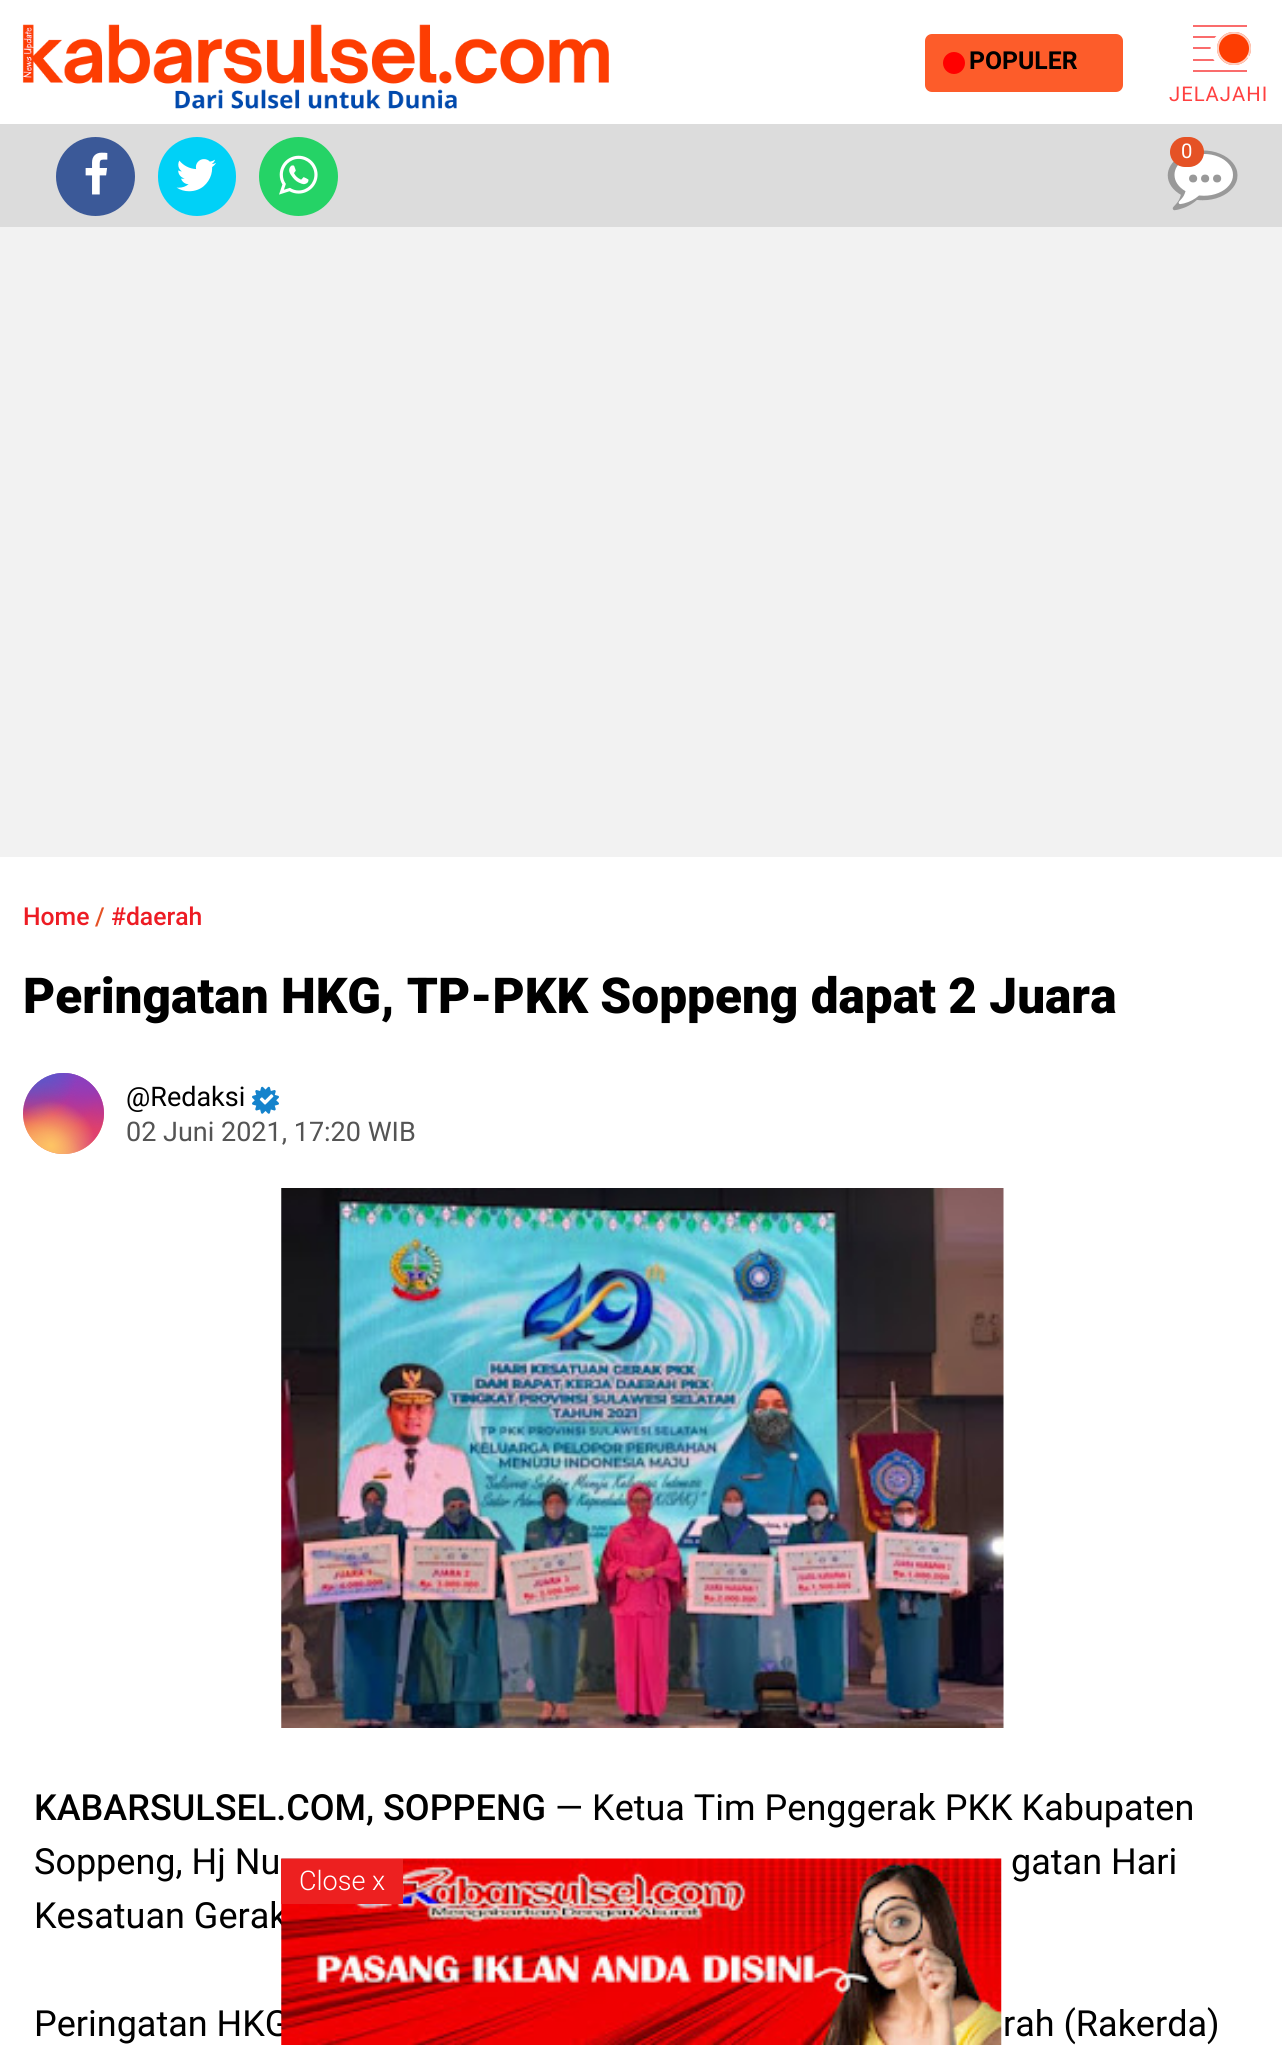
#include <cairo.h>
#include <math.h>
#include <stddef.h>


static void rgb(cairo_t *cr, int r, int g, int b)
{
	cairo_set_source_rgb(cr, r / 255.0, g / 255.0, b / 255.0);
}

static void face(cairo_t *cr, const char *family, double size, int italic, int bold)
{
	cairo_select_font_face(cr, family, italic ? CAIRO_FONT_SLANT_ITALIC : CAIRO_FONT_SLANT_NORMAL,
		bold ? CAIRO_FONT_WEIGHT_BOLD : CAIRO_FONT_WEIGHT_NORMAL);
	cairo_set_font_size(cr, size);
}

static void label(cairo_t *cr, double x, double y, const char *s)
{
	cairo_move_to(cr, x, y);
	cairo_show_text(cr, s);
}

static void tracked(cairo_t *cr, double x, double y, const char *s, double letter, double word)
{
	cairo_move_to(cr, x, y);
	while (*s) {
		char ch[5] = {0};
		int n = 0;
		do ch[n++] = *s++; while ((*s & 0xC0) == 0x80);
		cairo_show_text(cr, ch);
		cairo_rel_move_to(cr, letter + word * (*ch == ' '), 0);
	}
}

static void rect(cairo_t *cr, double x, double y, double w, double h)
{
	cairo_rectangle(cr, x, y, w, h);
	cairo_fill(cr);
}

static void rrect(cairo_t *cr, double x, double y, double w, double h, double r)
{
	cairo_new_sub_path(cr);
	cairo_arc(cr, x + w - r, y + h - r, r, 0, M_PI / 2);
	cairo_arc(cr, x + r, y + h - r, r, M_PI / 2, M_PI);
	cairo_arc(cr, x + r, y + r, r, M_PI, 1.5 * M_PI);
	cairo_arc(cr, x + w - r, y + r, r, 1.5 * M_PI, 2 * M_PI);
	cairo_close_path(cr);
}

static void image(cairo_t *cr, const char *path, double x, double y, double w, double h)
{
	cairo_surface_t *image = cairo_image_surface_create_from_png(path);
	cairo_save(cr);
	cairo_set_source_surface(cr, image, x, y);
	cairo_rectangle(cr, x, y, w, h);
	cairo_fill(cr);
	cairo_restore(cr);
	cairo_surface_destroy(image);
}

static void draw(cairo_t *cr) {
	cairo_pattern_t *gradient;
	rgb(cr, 255, 255, 255);
	cairo_paint(cr);
	image(cr, "image0.png", 22, 24, 587, 85);
	rgb(cr, 253, 92, 42);
	rrect(cr, 925, 34, 198, 58, 7);
	cairo_fill(cr);
	rgb(cr, 255, 0, 0);
	cairo_arc(cr, 954, 63, 11, 0, 2 * M_PI);
	cairo_fill(cr);
	face(cr, "Roboto", 24.75, 0, 1);
	rgb(cr, 0, 0, 0);
	label(cr, 969, 69, "POPULER");
	rgb(cr, 250, 108, 108);
	rect(cr, 1193, 25, 54, 2);
	rect(cr, 1193, 36, 24, 2);
	rect(cr, 1193, 47, 18, 2);
	rect(cr, 1193, 59, 22, 2);
	rgb(cr, 255, 255, 255);
	cairo_new_path(cr);
	cairo_move_to(cr, 1233, 29.5);
	cairo_curve_to(cr, 1245.5, 29.5, 1255.5, 38.5, 1255.5, 49.5);
	cairo_curve_to(cr, 1255.5, 60.5, 1245.5, 69.5, 1233, 69.5);
	cairo_curve_to(cr, 1220.5, 69.5, 1210.5, 60.5, 1210.5, 49.5);
	cairo_curve_to(cr, 1210.5, 38.5, 1220.5, 29.5, 1233, 29.5);
	cairo_close_path(cr);
	cairo_fill(cr);
	rgb(cr, 253, 61, 2);
	rrect(cr, 1217, 32, 34, 33, 16.5);
	cairo_fill(cr);
	rrect(cr, 1218, 33, 32, 31, 15.5);
	cairo_set_source_rgba(cr, 1, 1, 1, 0.75);
	cairo_stroke(cr);
	cairo_new_path(cr);
	cairo_move_to(cr, 1247, 57);
	cairo_line_to(cr, 1248, 55);
	cairo_line_to(cr, 1262, 67);
	cairo_line_to(cr, 1260.5, 68.5);
	cairo_close_path(cr);
	cairo_fill(cr);
	rgb(cr, 250, 108, 108);
	rect(cr, 1193, 70, 54, 2);
	face(cr, "Roboto", 20.25, 0, 0);
	rgb(cr, 255, 64, 64);
	tracked(cr, 1169, 101, "JELAJAHI", 1, 0);
	rgb(cr, 242, 242, 242);
	rect(cr, 0, 227, 1282, 630);
	rgb(cr, 220, 220, 220);
	rect(cr, 0, 124, 1282, 103);
	rgb(cr, 59, 89, 152);
	cairo_new_path(cr);
	cairo_arc(cr, 95.5, 176.5, 39.5, 0, 2 * M_PI);
	cairo_fill(cr);
	image(cr, "image1.png", 85, 152, 23, 43);
	rgb(cr, 0, 209, 247);
	rrect(cr, 158, 137, 78, 79, 39);
	cairo_fill(cr);
	image(cr, "image2.png", 176, 159, 40, 33);
	rgb(cr, 37, 211, 102);
	cairo_arc(cr, 298.5, 176.5, 39.5, 0, 2 * M_PI);
	cairo_fill(cr);
	image(cr, "image3.png", 279, 155, 39, 40);
	image(cr, "image5.png", 1167, 150, 71, 61);
	image(cr, "image4.png", 1174, 154, 59, 51);
	rgb(cr, 229, 82, 37);
	rrect(cr, 1170, 137, 34, 30, 15);
	cairo_fill(cr);
	rgb(cr, 255, 255, 255);
	label(cr, 1181, 158, "0");
	face(cr, "Roboto", 72, 0, 0);
	rgb(cr, 153, 153, 153);
	tracked(cr, 1184, 182, "...", -7, 0);
	face(cr, "Roboto Black", 49.5, 0, 0);
	rgb(cr, 0, 0, 0);
	label(cr, 23, 1013, "Peringatan HKG, TP-PKK Soppeng dapat 2 Juara");
	gradient = cairo_pattern_create_linear(63, 1073, 63, 1154);
	cairo_pattern_add_color_stop_rgba(gradient, 0, 0.396, 0.349, 0.792, 1);
	cairo_pattern_add_color_stop_rgba(gradient, 0.3, 0.737, 0.192, 0.561, 1);
	cairo_pattern_add_color_stop_rgba(gradient, 0.5, 0.89, 0.247, 0.373, 1);
	cairo_pattern_add_color_stop_rgba(gradient, 0.7, 0.969, 0.463, 0.22, 1);
	cairo_pattern_add_color_stop_rgba(gradient, 1, 0.996, 0.776, 0.427, 1);
	cairo_set_source(cr, gradient);
	cairo_pattern_destroy(gradient);
	cairo_new_path(cr);
	cairo_arc(cr, 63.5, 1113.5, 40.5, 0, 2 * M_PI);
	cairo_fill(cr);
	gradient = cairo_pattern_create_radial(104, 1154, 0, 104, 1154, 115);
	cairo_pattern_add_color_stop_rgba(gradient, 0, 0.851, 0.192, 0.478, 1);
	cairo_pattern_add_color_stop_rgba(gradient, 1, 0.851, 0.192, 0.478, 0);
	cairo_set_source(cr, gradient);
	cairo_pattern_destroy(gradient);
	cairo_arc(cr, 63.5, 1113.5, 40.5, 0, 2 * M_PI);
	cairo_fill(cr);
	gradient = cairo_pattern_create_radial(0, 0, 0, 0, 0, 1);
	cairo_pattern_set_matrix(gradient, &(cairo_matrix_t){1.0 / 69, 0, 0, 1.0 / 137, -1.0 * 71 / 69, -1.0 * 1057 / 137});
	cairo_pattern_add_color_stop_rgba(gradient, 0, 0.537, 0.239, 0.761, 1);
	cairo_pattern_add_color_stop_rgba(gradient, 0.5, 0.537, 0.239, 0.761, 0);
	cairo_set_source(cr, gradient);
	cairo_pattern_destroy(gradient);
	cairo_arc(cr, 63.5, 1113.5, 40.5, 0, 2 * M_PI);
	cairo_fill(cr);
	gradient = cairo_pattern_create_radial(104, 1073, 0, 104, 1073, 115);
	cairo_pattern_add_color_stop_rgba(gradient, 0, 0.537, 0.239, 0.761, 1);
	cairo_pattern_add_color_stop_rgba(gradient, 0.5, 0.537, 0.239, 0.761, 0);
	cairo_set_source(cr, gradient);
	cairo_pattern_destroy(gradient);
	cairo_arc(cr, 63.5, 1113.5, 40.5, 0, 2 * M_PI);
	cairo_fill(cr);
	gradient = cairo_pattern_create_radial(0, 0, 0, 0, 0, 1);
	cairo_pattern_set_matrix(gradient, &(cairo_matrix_t){1.0 / 92, 0, 0, 1.0 / 172, -1.0 * 39 / 92, -1.0 * 1033 / 172});
	cairo_pattern_add_color_stop_rgba(gradient, 0, 0.322, 0.345, 0.812, 1);
	cairo_pattern_add_color_stop_rgba(gradient, 0.5, 0.322, 0.345, 0.812, 0);
	cairo_set_source(cr, gradient);
	cairo_pattern_destroy(gradient);
	cairo_arc(cr, 63.5, 1113.5, 40.5, 0, 2 * M_PI);
	cairo_fill(cr);
	gradient = cairo_pattern_create_radial(0, 0, 0, 0, 0, 1);
	cairo_pattern_set_matrix(gradient, &(cairo_matrix_t){1.0 / 115, 0, 0, 1.0 / 143, -1.0 * 23 / 115, -1.0 * 1053 / 143});
	cairo_pattern_add_color_stop_rgba(gradient, 0, 0.322, 0.345, 0.812, 1);
	cairo_pattern_add_color_stop_rgba(gradient, 0.5, 0.322, 0.345, 0.812, 0);
	cairo_set_source(cr, gradient);
	cairo_pattern_destroy(gradient);
	cairo_arc(cr, 63.5, 1113.5, 40.5, 0, 2 * M_PI);
	cairo_fill(cr);
	gradient = cairo_pattern_create_radial(23, 1187, 0, 23, 1187, 139);
	cairo_pattern_add_color_stop_rgba(gradient, 0, 0.996, 0.773, 0.392, 1);
	cairo_pattern_add_color_stop_rgba(gradient, 0.5, 0.996, 0.773, 0.392, 0);
	cairo_set_source(cr, gradient);
	cairo_pattern_destroy(gradient);
	cairo_arc(cr, 63.5, 1113.5, 40.5, 0, 2 * M_PI);
	cairo_fill(cr);
	gradient = cairo_pattern_create_radial(51, 1146, 0, 51, 1146, 90);
	cairo_pattern_add_color_stop_rgba(gradient, 0, 0.996, 0.773, 0.392, 1);
	cairo_pattern_add_color_stop_rgba(gradient, 0.5, 0.996, 0.773, 0.392, 0);
	cairo_set_source(cr, gradient);
	cairo_pattern_destroy(gradient);
	cairo_arc(cr, 63.5, 1113.5, 40.5, 0, 2 * M_PI);
	cairo_fill(cr);
	face(cr, "Roboto", 27, 0, 0);
	rgb(cr, 0, 0, 0);
	label(cr, 126, 1106, "@Redaksi");
	image(cr, "image6.png", 252, 1086, 27, 28);
	image(cr, "image7.png", 259, 1094, 15, 11);
	rgb(cr, 84, 84, 84);
	label(cr, 126, 1141, "02 Juni 2021, 17:20 WIB");
	image(cr, "image8.png", 281, 1188, 723, 540);
	face(cr, "Roboto Medium", 36, 0, 0);
	rgb(cr, 0, 0, 0);
	label(cr, 34, 1820, "KABARSULSEL.COM, SOPPENG");
	face(cr, "Roboto", 36, 0, 0);
	label(cr, 555, 1820, "— Ketua Tim Penggerak PKK Kabupaten");
	label(cr, 34, 1874, "Soppeng, Hj Nu");
	label(cr, 1011, 1874, "gatan Hari");
	label(cr, 34, 1928, "Kesatuan Gerak");
	label(cr, 34, 2036, "Peringatan HKG");
	label(cr, 1003, 2036, "rah (Rakerda)");
	face(cr, "Roboto Medium", 24.75, 0, 0);
	rgb(cr, 237, 28, 36);
	label(cr, 23, 925, "Home");
	rgb(cr, 229, 82, 37);
	label(cr, 95, 925, "/");
	rgb(cr, 237, 28, 36);
	label(cr, 111, 925, "#daerah");
	image(cr, "image9.png", 281, 1858, 721, 187);
	rgb(cr, 237, 32, 32);
	rect(cr, 281, 1859, 122, 45);
	face(cr, "Roboto Light", 27, 0, 0);
	rgb(cr, 255, 255, 255);
	label(cr, 299, 1890, "Close x");
}

int main(void) {
	cairo_surface_t *surface = cairo_image_surface_create(CAIRO_FORMAT_RGB24, 1282, 2045);
	cairo_t *cr = cairo_create(surface);
	cairo_font_options_t *options = cairo_font_options_create();
	cairo_font_options_set_hint_metrics(options, CAIRO_HINT_METRICS_OFF);
	cairo_font_options_set_hint_style(options, CAIRO_HINT_STYLE_NONE);
	cairo_set_font_options(cr, options);
	cairo_set_miter_limit(cr, 4);
	draw(cr);
	cairo_surface_write_to_png(surface, "render.png");
	cairo_font_options_destroy(options);
	cairo_destroy(cr);
	cairo_surface_destroy(surface);
	return 0;
}
